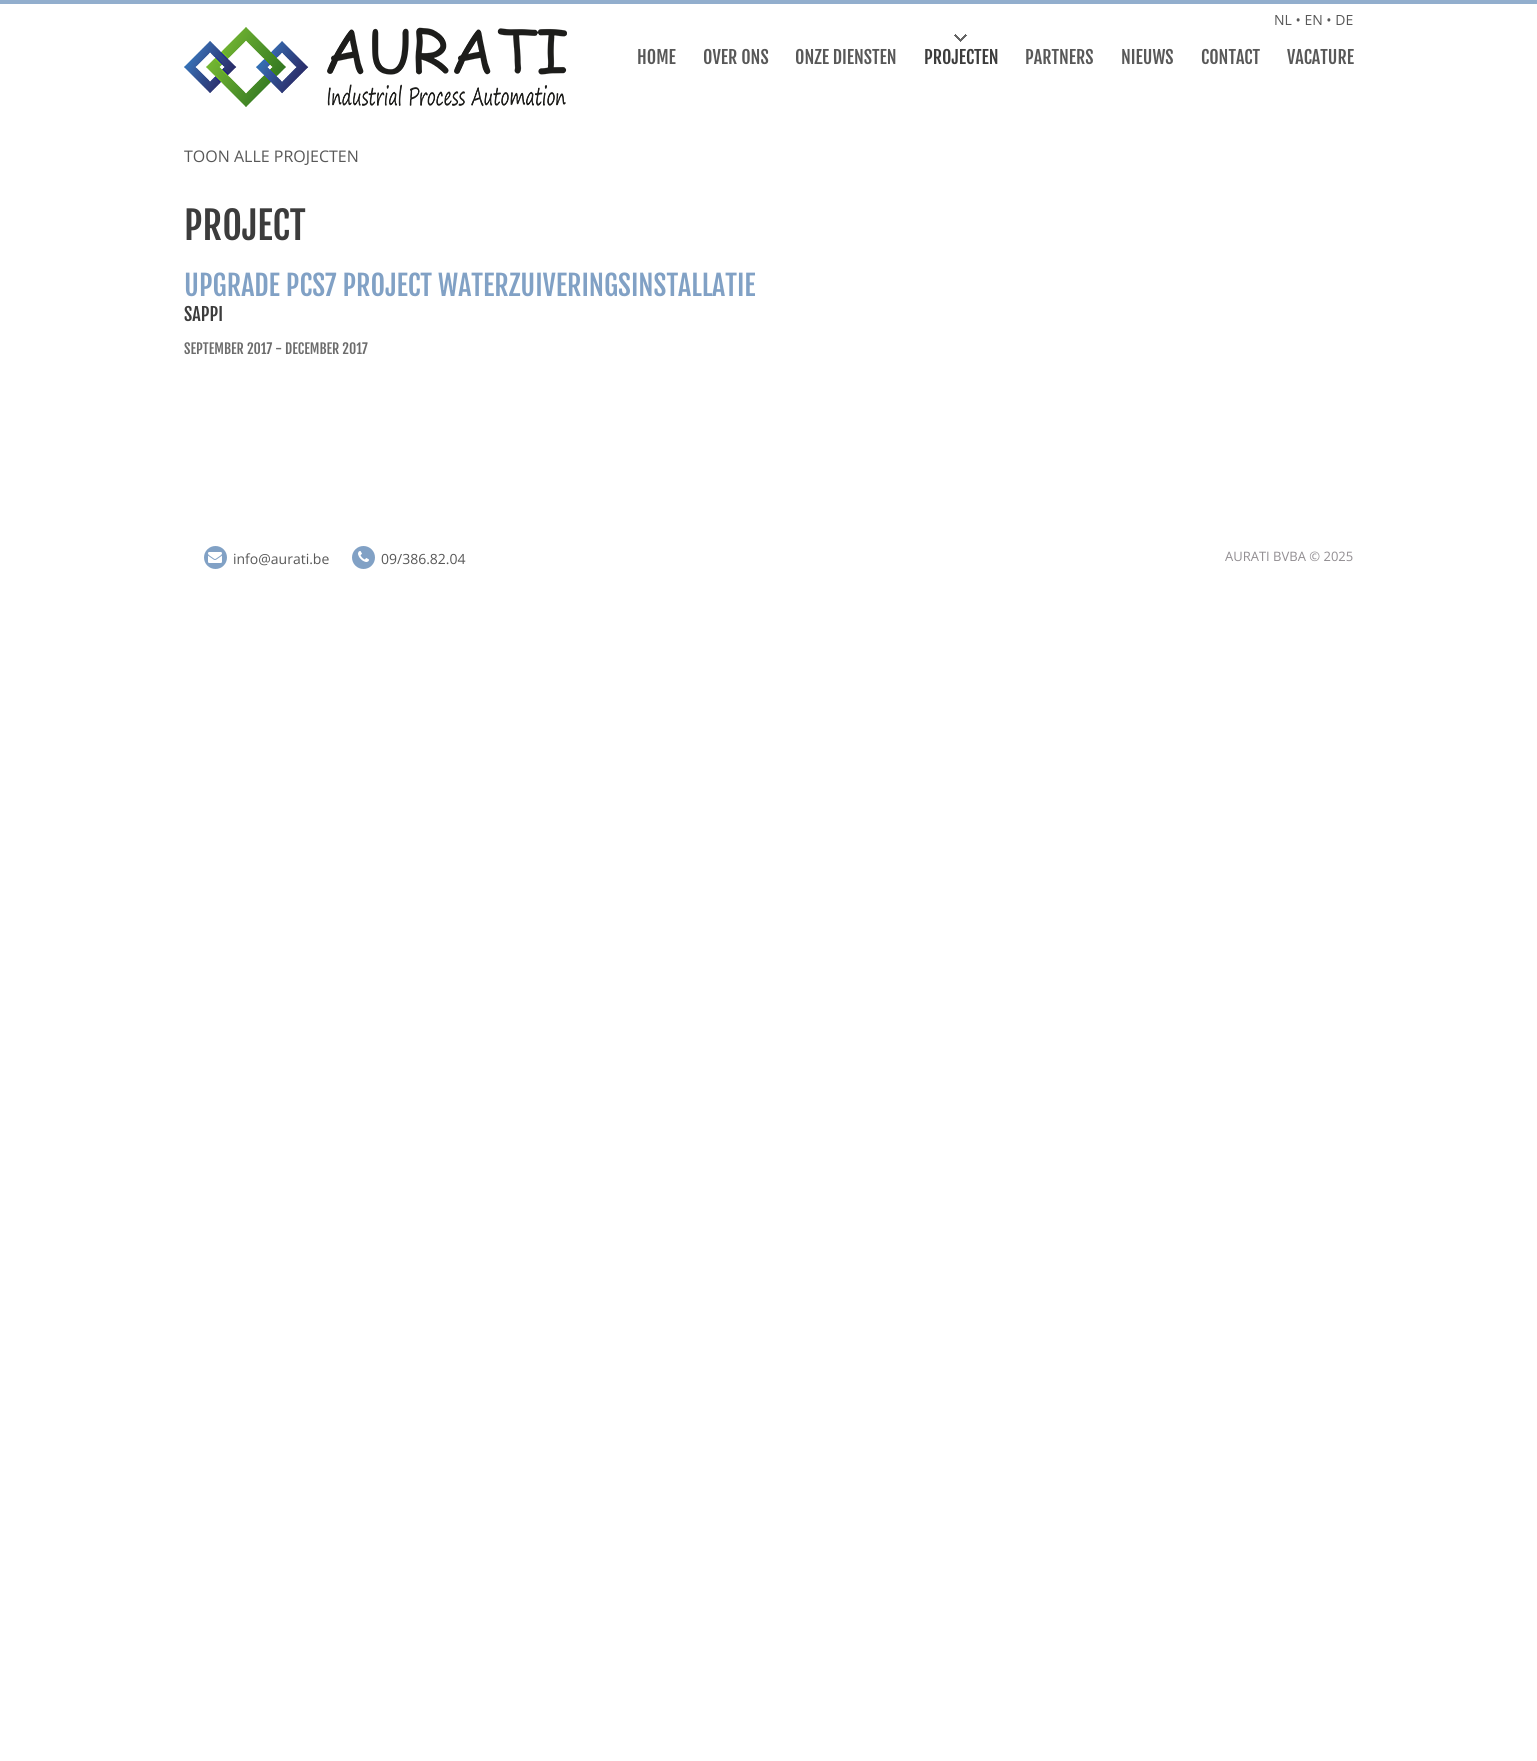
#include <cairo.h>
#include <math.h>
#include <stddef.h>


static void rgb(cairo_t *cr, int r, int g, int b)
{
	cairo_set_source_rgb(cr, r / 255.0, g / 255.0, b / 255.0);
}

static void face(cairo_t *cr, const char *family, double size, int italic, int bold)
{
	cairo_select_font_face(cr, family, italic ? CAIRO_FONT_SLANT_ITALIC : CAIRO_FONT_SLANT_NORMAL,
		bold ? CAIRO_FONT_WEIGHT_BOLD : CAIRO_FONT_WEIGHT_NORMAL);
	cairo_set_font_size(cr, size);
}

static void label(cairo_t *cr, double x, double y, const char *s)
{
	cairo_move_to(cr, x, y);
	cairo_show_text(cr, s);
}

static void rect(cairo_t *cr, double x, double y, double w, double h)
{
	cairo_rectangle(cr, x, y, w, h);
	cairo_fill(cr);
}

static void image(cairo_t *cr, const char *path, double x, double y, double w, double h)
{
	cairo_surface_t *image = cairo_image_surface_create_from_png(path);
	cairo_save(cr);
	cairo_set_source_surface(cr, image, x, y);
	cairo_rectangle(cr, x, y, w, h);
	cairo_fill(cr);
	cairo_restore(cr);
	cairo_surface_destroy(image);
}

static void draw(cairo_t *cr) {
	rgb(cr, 255, 255, 255);
	cairo_paint(cr);
	rgb(cr, 146, 174, 205);
	rect(cr, 0, 0, 1537, 4);
	face(cr, "Open Sans", 14, 0, 0);
	rgb(cr, 88, 88, 88);
	label(cr, 1274, 25, "NL • EN • DE");
	image(cr, "image0.png", 184, 27, 383, 80);
	face(cr, "Fjalla One", 18, 0, 0);
	label(cr, 637, 64, "HOME");
	label(cr, 703, 64, "OVER ONS");
	label(cr, 795, 64, "ONZE DIENSTEN");
	image(cr, "image1.png", 954, 34, 14, 8);
	rgb(cr, 60, 60, 60);
	label(cr, 924, 64, "PROJECTEN");
	rgb(cr, 88, 88, 88);
	label(cr, 1025, 64, "PARTNERS");
	label(cr, 1121, 64, "NIEUWS");
	label(cr, 1201, 64, "CONTACT");
	label(cr, 1287, 64, "VACATURE");
	face(cr, "Open Sans", 16, 0, 0);
	label(cr, 184, 162, "TOON ALLE PROJECTEN");
	face(cr, "Fjalla One", 38, 0, 0);
	rgb(cr, 60, 60, 60);
	label(cr, 184, 240, "PROJECT");
	face(cr, "Fjalla One", 28, 0, 0);
	rgb(cr, 129, 161, 197);
	label(cr, 184, 296, "UPGRADE PCS7 PROJECT WATERZUIVERINGSINSTALLATIE");
	face(cr, "Fjalla One", 18, 0, 0);
	rgb(cr, 60, 60, 60);
	label(cr, 184, 321, "SAPPI");
	face(cr, "Fjalla One", 14, 0, 0);
	rgb(cr, 108, 108, 108);
	label(cr, 184, 354, "SEPTEMBER 2017 - DECEMBER 2017");
	rgb(cr, 129, 161, 197);
	cairo_new_path(cr);
	cairo_arc(cr, 215.5, 557.5, 11.5, 0, 2 * M_PI);
	cairo_fill(cr);
	image(cr, "image2.png", 208, 552, 14, 11);
	face(cr, "Open Sans", 14, 0, 0);
	rgb(cr, 88, 88, 88);
	label(cr, 233, 564, "info@aurati.be");
	rgb(cr, 129, 161, 197);
	cairo_new_path(cr);
	cairo_arc(cr, 363.5, 557.5, 11.5, 0, 2 * M_PI);
	cairo_fill(cr);
	image(cr, "image3.png", 358, 551, 11, 11);
	rgb(cr, 88, 88, 88);
	label(cr, 381, 564, "09/386.82.04");
	face(cr, "Open Sans", 13, 0, 0);
	rgb(cr, 146, 142, 146);
	label(cr, 1225, 561, "AURATI BVBA © 2025");
}

int main(void) {
	cairo_surface_t *surface = cairo_image_surface_create(CAIRO_FORMAT_RGB24, 1537, 1761);
	cairo_t *cr = cairo_create(surface);
	cairo_font_options_t *options = cairo_font_options_create();
	cairo_font_options_set_hint_metrics(options, CAIRO_HINT_METRICS_OFF);
	cairo_font_options_set_hint_style(options, CAIRO_HINT_STYLE_NONE);
	cairo_set_font_options(cr, options);
	cairo_set_miter_limit(cr, 4);
	draw(cr);
	cairo_surface_write_to_png(surface, "render.png");
	cairo_font_options_destroy(options);
	cairo_destroy(cr);
	cairo_surface_destroy(surface);
	return 0;
}
